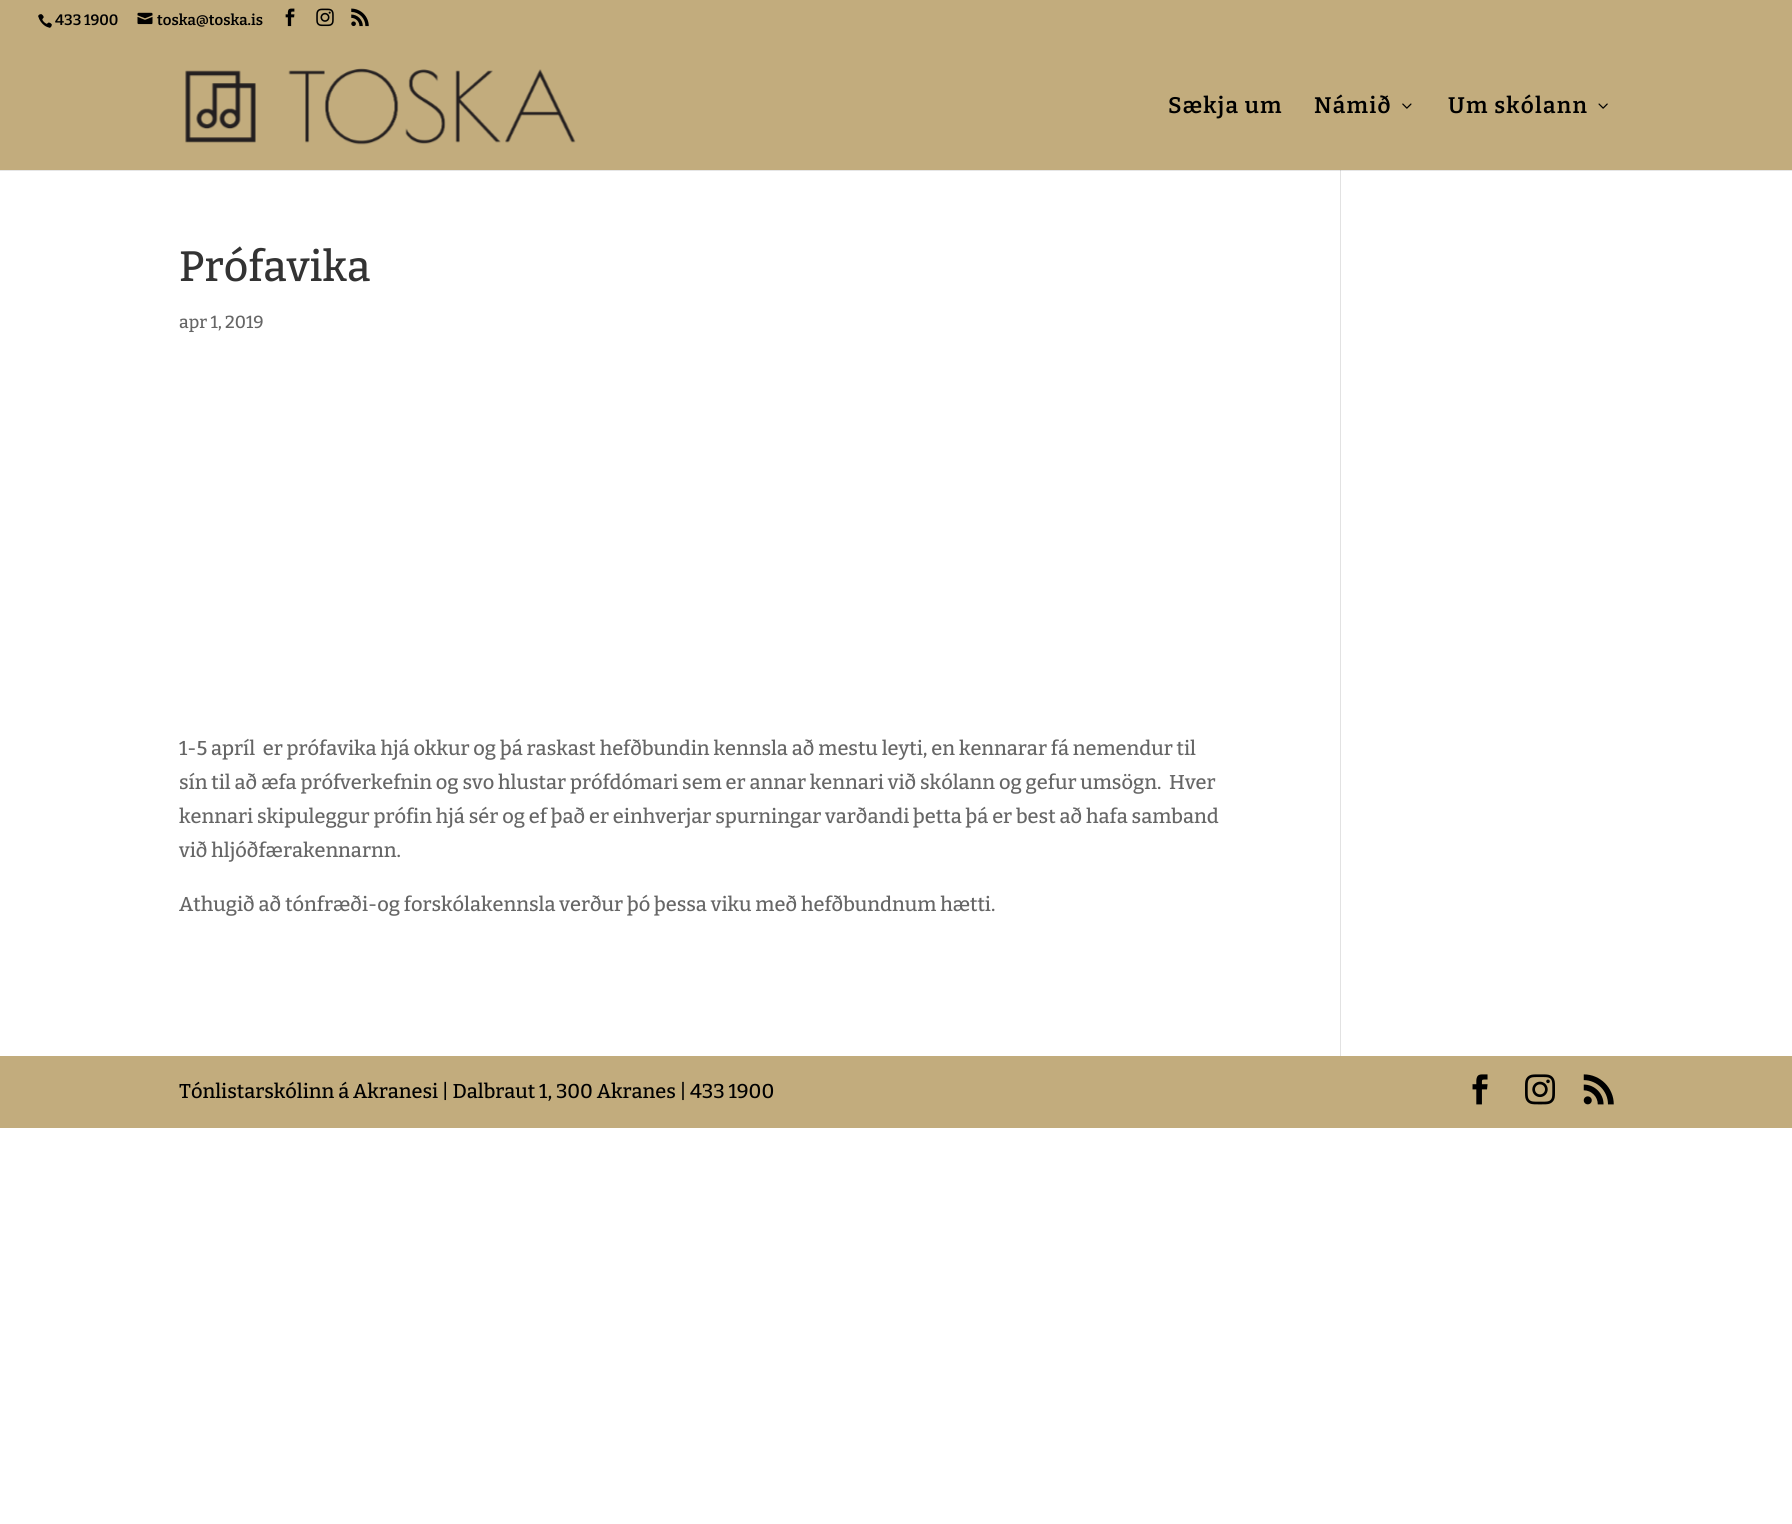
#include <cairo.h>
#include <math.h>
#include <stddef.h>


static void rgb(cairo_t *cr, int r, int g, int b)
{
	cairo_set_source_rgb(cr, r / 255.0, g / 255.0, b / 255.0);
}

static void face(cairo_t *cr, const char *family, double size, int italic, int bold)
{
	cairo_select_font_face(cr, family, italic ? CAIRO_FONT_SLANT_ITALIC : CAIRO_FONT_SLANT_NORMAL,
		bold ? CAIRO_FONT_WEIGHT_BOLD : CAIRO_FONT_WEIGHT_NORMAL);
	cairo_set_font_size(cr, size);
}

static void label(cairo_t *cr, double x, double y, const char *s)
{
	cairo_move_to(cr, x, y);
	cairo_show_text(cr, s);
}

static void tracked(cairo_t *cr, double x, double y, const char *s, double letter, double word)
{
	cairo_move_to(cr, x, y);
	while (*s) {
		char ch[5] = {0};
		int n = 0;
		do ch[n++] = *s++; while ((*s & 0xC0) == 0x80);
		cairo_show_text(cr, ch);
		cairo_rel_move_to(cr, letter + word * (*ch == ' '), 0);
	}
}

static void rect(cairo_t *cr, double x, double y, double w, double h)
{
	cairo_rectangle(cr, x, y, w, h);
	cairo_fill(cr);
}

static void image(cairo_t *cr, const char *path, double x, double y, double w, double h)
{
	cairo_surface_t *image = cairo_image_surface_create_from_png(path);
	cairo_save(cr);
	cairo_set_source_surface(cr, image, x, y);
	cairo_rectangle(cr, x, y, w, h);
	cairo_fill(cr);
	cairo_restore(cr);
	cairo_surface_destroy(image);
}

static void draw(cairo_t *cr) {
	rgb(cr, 255, 255, 255);
	cairo_paint(cr);
	rgb(cr, 194, 172, 125);
	rect(cr, 0, 0, 1792, 170);
	image(cr, "image0.png", 38, 14, 14, 14);
	face(cr, "Bitter SemiBold", 15, 0, 0);
	rgb(cr, 0, 0, 0);
	label(cr, 55, 25, "433 1900");
	image(cr, "image1.png", 137, 12, 16, 13);
	label(cr, 157, 25, "toska@toska.is");
	image(cr, "image2.png", 285, 8, 10, 19);
	image(cr, "image3.png", 316, 8, 18, 19);
	image(cr, "image4.png", 351, 8, 18, 19);
	rgb(cr, 226, 226, 226);
	rect(cr, 1340, 170, 1, 886);
	cairo_set_source_rgba(cr, 0, 0, 0, 0.1);
	cairo_new_path(cr);
	cairo_move_to(cr, 0, 170);
	cairo_line_to(cr, 0, 171);
	cairo_line_to(cr, 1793, 171);
	cairo_line_to(cr, 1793, 41);
	cairo_line_to(cr, 1792, 41);
	cairo_line_to(cr, 1792, 170);
	cairo_close_path(cr);
	cairo_fill(cr);
	image(cr, "image5.png", 185, 68, 391, 77);
	face(cr, "Bitter SemiBold", 22.5, 0, 0);
	rgb(cr, 0, 0, 0);
	tracked(cr, 1168, 113, "Sækja um", 1.25, 0);
	tracked(cr, 1314, 113, "Námið", 1.25, 0);
	image(cr, "image6.png", 1402, 103, 10, 6);
	tracked(cr, 1448, 113, "Um skólann", 1.25, 0);
	image(cr, "image7.png", 1598, 103, 10, 6);
	face(cr, "Bitter Medium", 42.5, 0, 0);
	rgb(cr, 51, 51, 51);
	label(cr, 179, 281, "Prófavika");
	face(cr, "Bitter Medium", 17.5, 0, 0);
	rgb(cr, 102, 102, 102);
	label(cr, 179, 328, "apr 1, 2019");
	face(cr, "Bitter Medium", 20, 0, 0);
	label(cr, 179, 755, "1-5 apríl  er prófavika hjá okkur og þá raskast hefðbundin kennsla að mestu leyti, en kennarar fá nemendur til");
	label(cr, 179, 789, "sín til að æfa prófverkefnin og svo hlustar prófdómari sem er annar kennari við skólann og gefur umsögn.  Hver");
	label(cr, 179, 823, "kennari skipuleggur prófin hjá sér og ef það er einhverjar spurningar varðandi þetta þá er best að hafa samband");
	label(cr, 179, 857, "við hljóðfærakennarnn.");
	label(cr, 179, 911, "Athugið að tónfræði-og forskólakennsla verður þó þessa viku með hefðbundnum hætti.");
	rgb(cr, 194, 172, 125);
	rect(cr, 0, 1056, 1792, 72);
	rgb(cr, 0, 0, 0);
	label(cr, 179, 1098, "Tónlistarskólinn á Akranesi | Dalbraut 1, 300 Akranes | 433 1900");
	image(cr, "image8.png", 1472, 1074, 16, 31);
	image(cr, "image9.png", 1525, 1074, 30, 31);
	image(cr, "image10.png", 1583, 1074, 31, 31);
}

int main(void) {
	cairo_surface_t *surface = cairo_image_surface_create(CAIRO_FORMAT_RGB24, 1792, 1524);
	cairo_t *cr = cairo_create(surface);
	cairo_font_options_t *options = cairo_font_options_create();
	cairo_font_options_set_hint_metrics(options, CAIRO_HINT_METRICS_OFF);
	cairo_font_options_set_hint_style(options, CAIRO_HINT_STYLE_NONE);
	cairo_set_font_options(cr, options);
	cairo_set_miter_limit(cr, 4);
	draw(cr);
	cairo_surface_write_to_png(surface, "render.png");
	cairo_font_options_destroy(options);
	cairo_destroy(cr);
	cairo_surface_destroy(surface);
	return 0;
}
